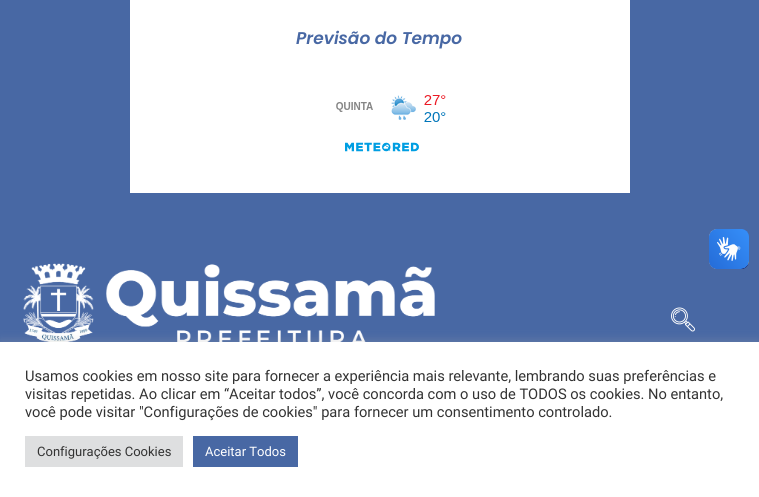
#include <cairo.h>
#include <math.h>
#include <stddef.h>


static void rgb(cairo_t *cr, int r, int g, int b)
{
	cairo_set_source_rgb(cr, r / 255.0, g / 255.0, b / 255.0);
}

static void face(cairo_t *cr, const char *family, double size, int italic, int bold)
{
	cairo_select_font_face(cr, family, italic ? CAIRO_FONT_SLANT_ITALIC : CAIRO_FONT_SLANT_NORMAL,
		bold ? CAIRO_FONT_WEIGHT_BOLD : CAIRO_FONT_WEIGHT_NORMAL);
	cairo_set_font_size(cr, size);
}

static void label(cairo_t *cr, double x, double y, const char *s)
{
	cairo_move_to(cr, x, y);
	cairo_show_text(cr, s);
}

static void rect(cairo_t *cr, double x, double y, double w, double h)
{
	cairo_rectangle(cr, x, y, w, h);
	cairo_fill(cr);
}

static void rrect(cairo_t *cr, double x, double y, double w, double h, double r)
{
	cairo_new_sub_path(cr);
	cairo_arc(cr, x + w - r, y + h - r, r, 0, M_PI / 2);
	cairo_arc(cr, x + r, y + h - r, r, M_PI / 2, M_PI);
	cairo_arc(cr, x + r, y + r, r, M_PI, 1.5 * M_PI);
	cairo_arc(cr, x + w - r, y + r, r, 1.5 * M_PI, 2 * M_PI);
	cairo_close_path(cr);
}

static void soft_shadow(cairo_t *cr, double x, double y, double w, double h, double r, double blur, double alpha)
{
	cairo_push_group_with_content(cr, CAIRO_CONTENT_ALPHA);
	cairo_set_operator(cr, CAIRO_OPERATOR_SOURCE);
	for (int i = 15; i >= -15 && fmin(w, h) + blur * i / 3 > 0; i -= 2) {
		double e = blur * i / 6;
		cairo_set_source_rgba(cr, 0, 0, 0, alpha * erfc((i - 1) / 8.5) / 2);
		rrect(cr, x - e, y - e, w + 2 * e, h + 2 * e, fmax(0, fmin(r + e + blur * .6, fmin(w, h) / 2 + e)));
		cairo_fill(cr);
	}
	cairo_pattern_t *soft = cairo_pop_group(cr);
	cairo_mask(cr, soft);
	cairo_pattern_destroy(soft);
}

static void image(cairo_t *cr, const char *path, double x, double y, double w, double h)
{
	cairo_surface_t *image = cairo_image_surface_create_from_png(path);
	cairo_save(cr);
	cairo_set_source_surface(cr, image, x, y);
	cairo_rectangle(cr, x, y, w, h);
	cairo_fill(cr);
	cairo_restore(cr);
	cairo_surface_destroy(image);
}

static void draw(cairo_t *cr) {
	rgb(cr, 72, 104, 164);
	cairo_paint(cr);
	rgb(cr, 255, 255, 255);
	rect(cr, 130, 0, 500, 193);
	face(cr, "Poppins SemiBold", 17, 1, 0);
	rgb(cr, 72, 104, 164);
	label(cr, 296, 44, "Previsão do Tempo");
	image(cr, "image0.png", 336, 95, 110, 57);
	image(cr, "image1.png", 23, 263, 412, 79);
	image(cr, "image2.png", 671, 307, 24, 25);
	image(cr, "image3.png", 709, 229, 40, 40);
	image(cr, "image4.png", 709, 229, 40, 40);
	rgb(cr, 172, 171, 171);
	soft_shadow(cr, 0, 341, 759, 155, 0, 5, 0.3);
	rgb(cr, 255, 255, 255);
	rect(cr, 0, 342, 759, 155);
	face(cr, "Roboto", 14.65, 0, 0);
	rgb(cr, 51, 51, 51);
	label(cr, 25, 381, "Usamos cookies em nosso site para fornecer a experiência mais relevante, lembrando suas preferências e");
	label(cr, 25, 399, "visitas repetidas. Ao clicar em “Aceitar todos”, você concorda com o uso de TODOS os cookies. No entanto,");
	label(cr, 25, 417, "você pode visitar \"Configurações de cookies\" para fornecer um consentimento controlado.");
	rgb(cr, 222, 223, 224);
	rect(cr, 25, 436, 158, 31);
	face(cr, "Roboto", 13, 0, 0);
	rgb(cr, 51, 51, 51);
	label(cr, 37, 456, "Configurações Cookies");
	rgb(cr, 72, 104, 164);
	rect(cr, 193, 436, 105, 31);
	rgb(cr, 255, 255, 255);
	label(cr, 205, 456, "Aceitar Todos");
}

int main(void) {
	cairo_surface_t *surface = cairo_image_surface_create(CAIRO_FORMAT_RGB24, 759, 497);
	cairo_t *cr = cairo_create(surface);
	cairo_font_options_t *options = cairo_font_options_create();
	cairo_font_options_set_hint_metrics(options, CAIRO_HINT_METRICS_OFF);
	cairo_font_options_set_hint_style(options, CAIRO_HINT_STYLE_NONE);
	cairo_set_font_options(cr, options);
	cairo_set_miter_limit(cr, 4);
	draw(cr);
	cairo_surface_write_to_png(surface, "render.png");
	cairo_font_options_destroy(options);
	cairo_destroy(cr);
	cairo_surface_destroy(surface);
	return 0;
}
